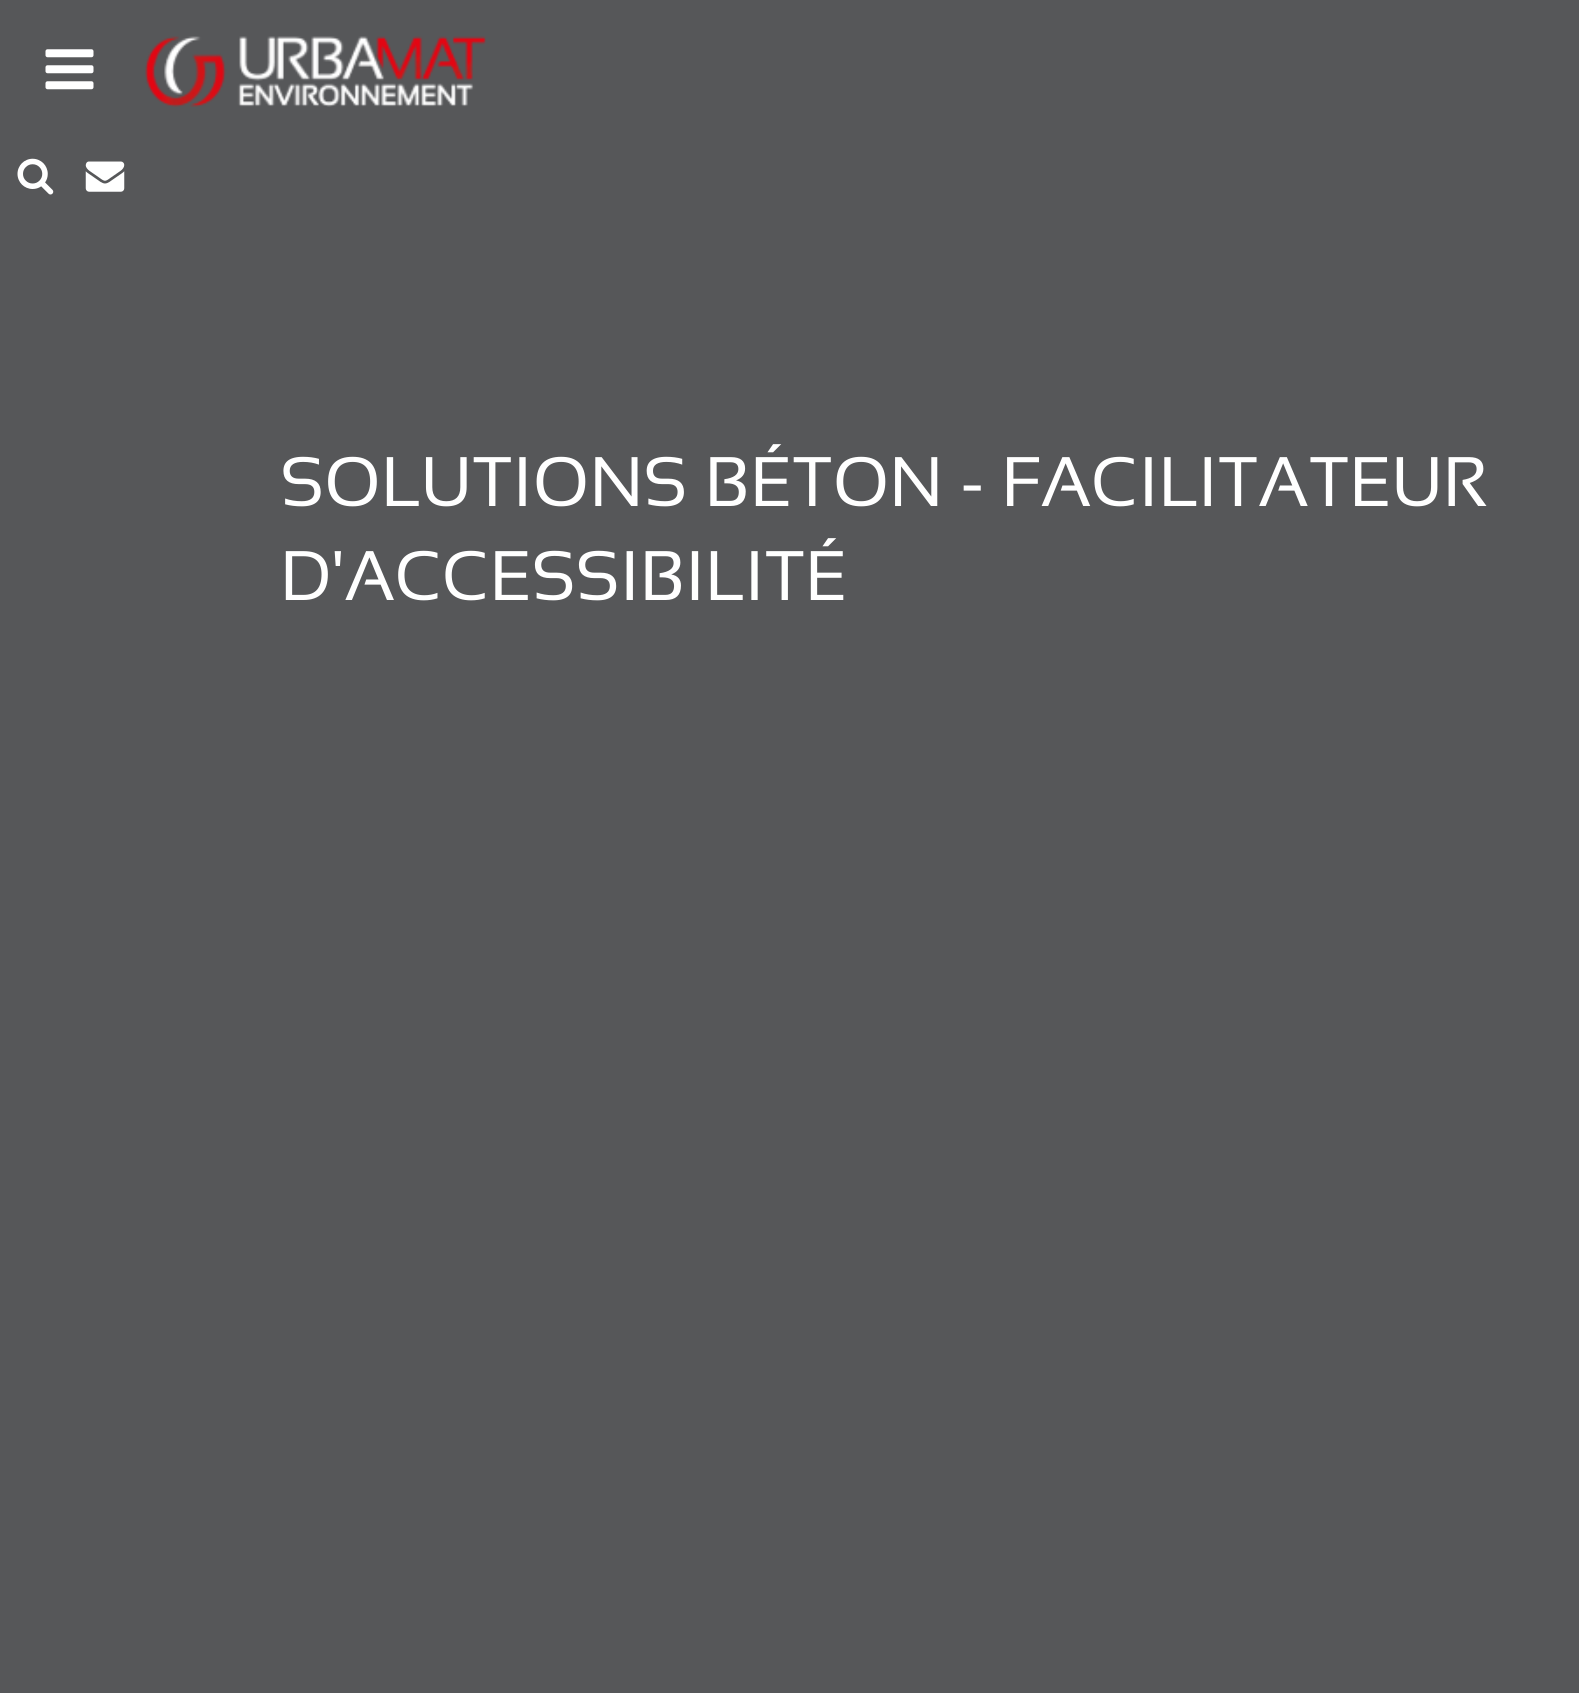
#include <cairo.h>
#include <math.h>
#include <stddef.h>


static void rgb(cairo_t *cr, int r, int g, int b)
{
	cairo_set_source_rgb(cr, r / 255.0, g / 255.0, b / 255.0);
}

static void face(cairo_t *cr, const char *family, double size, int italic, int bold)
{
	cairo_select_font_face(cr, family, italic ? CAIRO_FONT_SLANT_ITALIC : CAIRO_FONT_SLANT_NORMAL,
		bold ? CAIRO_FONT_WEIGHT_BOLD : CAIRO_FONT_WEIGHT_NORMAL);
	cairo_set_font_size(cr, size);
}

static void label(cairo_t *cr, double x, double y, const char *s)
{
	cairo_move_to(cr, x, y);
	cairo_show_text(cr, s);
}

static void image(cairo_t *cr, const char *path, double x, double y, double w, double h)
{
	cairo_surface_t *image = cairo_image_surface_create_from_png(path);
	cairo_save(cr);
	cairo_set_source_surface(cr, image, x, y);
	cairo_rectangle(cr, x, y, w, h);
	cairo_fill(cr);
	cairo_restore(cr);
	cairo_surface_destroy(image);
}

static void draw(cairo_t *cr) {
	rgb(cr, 86, 87, 89);
	cairo_paint(cr);
	image(cr, "image0.png", 45, 49, 49, 41);
	image(cr, "image1.png", 145, 36, 341, 71);
	image(cr, "image2.png", 17, 158, 37, 37);
	image(cr, "image3.png", 85, 161, 40, 31);
	face(cr, "Sansation", 70, 0, 0);
	rgb(cr, 255, 255, 255);
	label(cr, 280, 506, "SOLUTIONS BÉTON - FACILITATEUR");
	label(cr, 280, 600, "D'ACCESSIBILITÉ");
}

int main(void) {
	cairo_surface_t *surface = cairo_image_surface_create(CAIRO_FORMAT_RGB24, 1579, 1693);
	cairo_t *cr = cairo_create(surface);
	cairo_font_options_t *options = cairo_font_options_create();
	cairo_font_options_set_hint_metrics(options, CAIRO_HINT_METRICS_OFF);
	cairo_font_options_set_hint_style(options, CAIRO_HINT_STYLE_NONE);
	cairo_set_font_options(cr, options);
	cairo_set_miter_limit(cr, 4);
	draw(cr);
	cairo_surface_write_to_png(surface, "render.png");
	cairo_font_options_destroy(options);
	cairo_destroy(cr);
	cairo_surface_destroy(surface);
	return 0;
}
